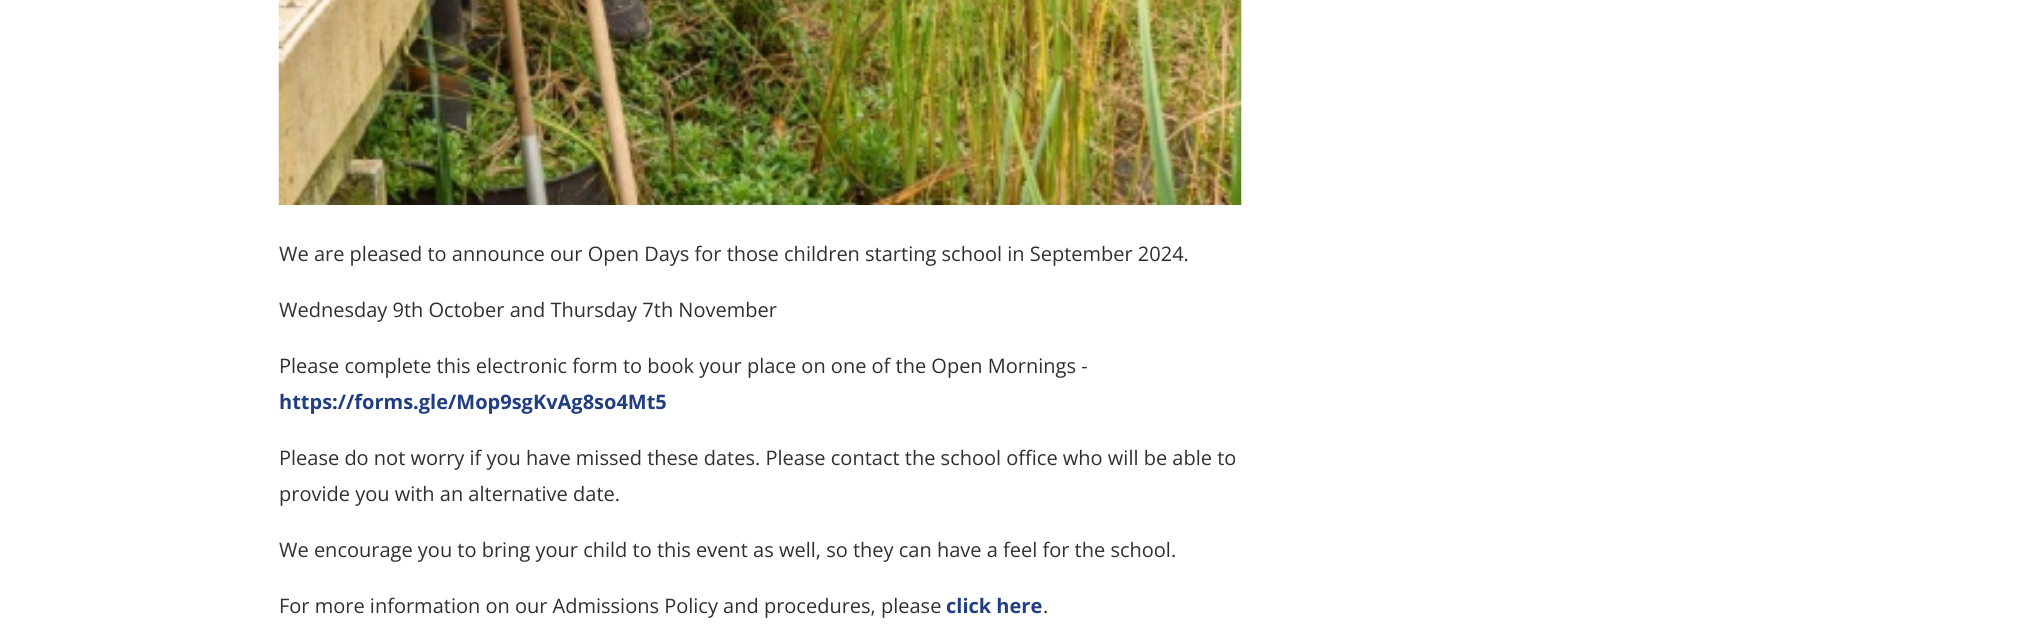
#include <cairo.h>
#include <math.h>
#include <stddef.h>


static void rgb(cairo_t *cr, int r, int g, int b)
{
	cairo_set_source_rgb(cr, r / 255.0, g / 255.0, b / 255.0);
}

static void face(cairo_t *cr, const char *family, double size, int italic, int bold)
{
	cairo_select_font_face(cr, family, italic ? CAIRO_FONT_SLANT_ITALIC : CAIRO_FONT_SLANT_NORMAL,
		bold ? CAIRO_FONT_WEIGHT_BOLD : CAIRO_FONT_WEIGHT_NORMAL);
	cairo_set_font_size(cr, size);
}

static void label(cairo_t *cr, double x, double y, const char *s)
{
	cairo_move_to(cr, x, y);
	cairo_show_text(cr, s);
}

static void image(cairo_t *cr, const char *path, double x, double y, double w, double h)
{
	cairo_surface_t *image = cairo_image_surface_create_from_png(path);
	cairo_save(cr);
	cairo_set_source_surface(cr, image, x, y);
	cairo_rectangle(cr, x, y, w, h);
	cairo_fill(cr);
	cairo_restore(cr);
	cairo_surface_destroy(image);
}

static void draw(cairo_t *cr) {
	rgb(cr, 255, 255, 255);
	cairo_paint(cr);
	image(cr, "image0.png", 278, 0, 964, 205);
	face(cr, "Open Sans", 20, 0, 0);
	rgb(cr, 48, 48, 48);
	label(cr, 279, 261, "We are pleased to announce our Open Days for those children starting school in September 2024.");
	label(cr, 279, 317, "Wednesday 9th October and Thursday 7th November");
	label(cr, 279, 373, "Please complete this electronic form to book your place on one of the Open Mornings -");
	face(cr, "Open Sans", 20, 0, 1);
	rgb(cr, 34, 62, 130);
	label(cr, 279, 409, "https://forms.gle/Mop9sgKvAg8so4Mt5");
	face(cr, "Open Sans", 20, 0, 0);
	rgb(cr, 48, 48, 48);
	label(cr, 279, 465, "Please do not worry if you have missed these dates. Please contact the school office who will be able to");
	label(cr, 279, 501, "provide you with an alternative date.");
	label(cr, 279, 557, "We encourage you to bring your child to this event as well, so they can have a feel for the school.");
	label(cr, 279, 613, "For more information on our Admissions Policy and procedures, please");
	face(cr, "Open Sans", 20, 0, 1);
	rgb(cr, 34, 62, 130);
	label(cr, 946, 613, "click here");
	face(cr, "Open Sans", 20, 0, 0);
	rgb(cr, 48, 48, 48);
	label(cr, 1043, 613, ".");
}

int main(void) {
	cairo_surface_t *surface = cairo_image_surface_create(CAIRO_FORMAT_RGB24, 2020, 626);
	cairo_t *cr = cairo_create(surface);
	cairo_font_options_t *options = cairo_font_options_create();
	cairo_font_options_set_hint_metrics(options, CAIRO_HINT_METRICS_OFF);
	cairo_font_options_set_hint_style(options, CAIRO_HINT_STYLE_NONE);
	cairo_set_font_options(cr, options);
	cairo_set_miter_limit(cr, 4);
	draw(cr);
	cairo_surface_write_to_png(surface, "render.png");
	cairo_font_options_destroy(options);
	cairo_destroy(cr);
	cairo_surface_destroy(surface);
	return 0;
}
